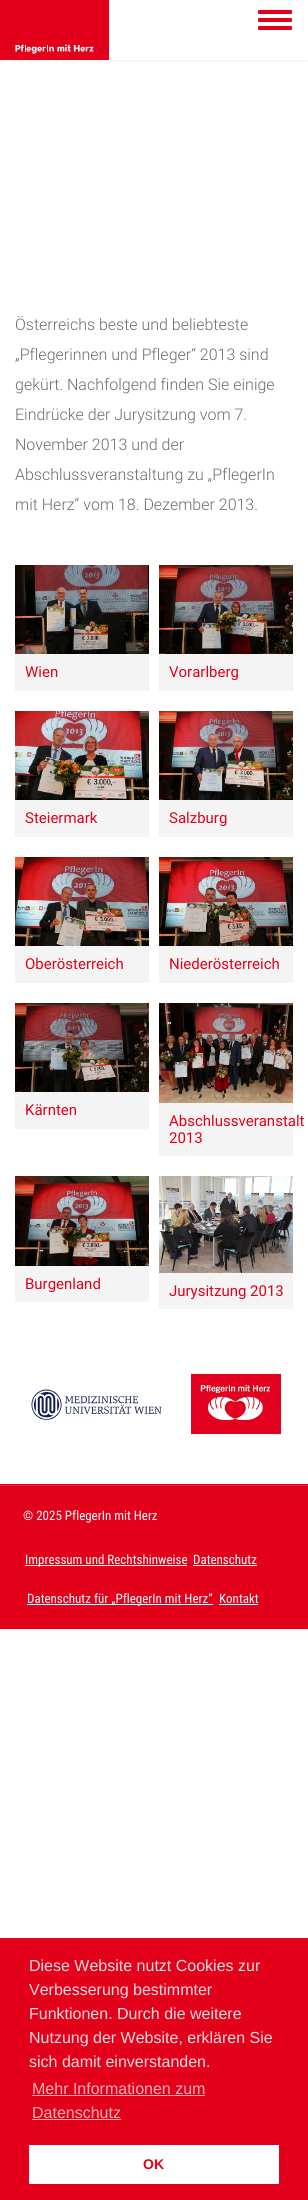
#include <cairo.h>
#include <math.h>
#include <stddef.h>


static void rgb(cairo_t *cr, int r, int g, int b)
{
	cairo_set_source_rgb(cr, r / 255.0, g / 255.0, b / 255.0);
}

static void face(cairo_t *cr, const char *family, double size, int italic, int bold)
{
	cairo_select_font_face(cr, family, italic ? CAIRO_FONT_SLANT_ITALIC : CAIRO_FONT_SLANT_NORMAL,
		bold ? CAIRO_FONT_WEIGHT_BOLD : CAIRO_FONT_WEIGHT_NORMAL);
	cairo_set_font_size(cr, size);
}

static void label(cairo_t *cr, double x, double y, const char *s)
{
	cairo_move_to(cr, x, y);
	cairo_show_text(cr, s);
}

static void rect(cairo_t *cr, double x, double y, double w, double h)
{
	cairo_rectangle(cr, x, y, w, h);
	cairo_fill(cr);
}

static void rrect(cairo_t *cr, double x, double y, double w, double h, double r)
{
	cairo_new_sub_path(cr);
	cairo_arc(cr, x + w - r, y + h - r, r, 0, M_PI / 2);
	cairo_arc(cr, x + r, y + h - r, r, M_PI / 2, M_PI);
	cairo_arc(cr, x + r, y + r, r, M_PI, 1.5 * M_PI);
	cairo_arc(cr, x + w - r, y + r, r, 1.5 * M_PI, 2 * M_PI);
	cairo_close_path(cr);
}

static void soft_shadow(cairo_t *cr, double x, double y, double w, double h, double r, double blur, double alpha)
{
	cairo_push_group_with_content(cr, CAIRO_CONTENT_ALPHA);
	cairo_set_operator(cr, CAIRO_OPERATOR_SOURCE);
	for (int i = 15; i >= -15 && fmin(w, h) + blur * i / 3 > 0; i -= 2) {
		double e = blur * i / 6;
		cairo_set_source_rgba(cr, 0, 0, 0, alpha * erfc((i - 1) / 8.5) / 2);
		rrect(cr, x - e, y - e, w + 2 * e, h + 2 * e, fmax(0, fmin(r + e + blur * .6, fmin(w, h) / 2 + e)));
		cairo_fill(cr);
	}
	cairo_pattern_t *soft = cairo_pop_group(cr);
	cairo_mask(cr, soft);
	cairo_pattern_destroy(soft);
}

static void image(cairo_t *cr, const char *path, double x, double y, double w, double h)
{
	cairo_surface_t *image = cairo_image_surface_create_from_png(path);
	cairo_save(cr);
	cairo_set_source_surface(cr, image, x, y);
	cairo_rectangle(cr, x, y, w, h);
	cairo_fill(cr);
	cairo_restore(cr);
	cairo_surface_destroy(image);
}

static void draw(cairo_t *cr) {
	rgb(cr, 255, 255, 255);
	cairo_paint(cr);
	cairo_save(cr);
	cairo_rectangle(cr, 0, 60, 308, 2);
	cairo_clip(cr);
	rgb(cr, 0, 0, 0);
	soft_shadow(cr, 0, 1, 308, 60, 0, 2.5, 0.07);
	cairo_restore(cr);
	image(cr, "image0.png", 0, 0, 109, 60);
	rgb(cr, 226, 0, 26);
	rrect(cr, 258, 10, 34, 4, 1);
	cairo_fill(cr);
	rrect(cr, 258, 18, 34, 4, 1);
	cairo_fill(cr);
	rrect(cr, 258, 26, 34, 4, 1);
	cairo_fill(cr);
	face(cr, "Roboto Light", 16, 0, 0);
	rgb(cr, 108, 108, 108);
	label(cr, 15, 330, "Österreichs beste und beliebteste");
	label(cr, 15, 360, "„Pflegerinnen und Pfleger“ 2013 sind");
	label(cr, 15, 390, "gekürt. Nachfolgend finden Sie einige");
	label(cr, 15, 420, "Eindrücke der Jurysitzung vom 7.");
	label(cr, 15, 450, "November 2013 und der");
	label(cr, 15, 480, "Abschlussveranstaltung zu „PflegerIn");
	label(cr, 15, 510, "mit Herz“ vom 18. Dezember 2013.");
	image(cr, "image1.png", 15, 565, 134, 89);
	rgb(cr, 244, 244, 244);
	rect(cr, 15, 654, 134, 37);
	face(cr, "Roboto", 15, 0, 0);
	rgb(cr, 226, 0, 26);
	label(cr, 25, 677, "Wien");
	image(cr, "image2.png", 159, 565, 134, 89);
	rgb(cr, 244, 244, 244);
	rect(cr, 159, 654, 134, 37);
	rgb(cr, 226, 0, 26);
	label(cr, 169, 677, "Vorarlberg");
	image(cr, "image3.png", 15, 711, 134, 89);
	rgb(cr, 244, 244, 244);
	rect(cr, 15, 800, 134, 37);
	rgb(cr, 226, 0, 26);
	label(cr, 25, 823, "Steiermark");
	image(cr, "image4.png", 159, 711, 134, 89);
	rgb(cr, 244, 244, 244);
	rect(cr, 159, 800, 134, 37);
	rgb(cr, 226, 0, 26);
	label(cr, 169, 823, "Salzburg");
	image(cr, "image5.png", 15, 857, 134, 89);
	rgb(cr, 244, 244, 244);
	rect(cr, 15, 946, 134, 37);
	rgb(cr, 226, 0, 26);
	label(cr, 25, 969, "Oberösterreich");
	image(cr, "image6.png", 159, 857, 134, 89);
	rgb(cr, 244, 244, 244);
	rect(cr, 159, 946, 134, 37);
	rgb(cr, 226, 0, 26);
	label(cr, 169, 969, "Niederösterreich");
	image(cr, "image7.png", 15, 1003, 134, 89);
	rgb(cr, 244, 244, 244);
	rect(cr, 15, 1092, 134, 37);
	rgb(cr, 226, 0, 26);
	label(cr, 25, 1115, "Kärnten");
	image(cr, "image8.png", 159, 1003, 134, 100);
	rgb(cr, 244, 244, 244);
	rect(cr, 159, 1103, 134, 53);
	rgb(cr, 226, 0, 26);
	label(cr, 169, 1126, "Abschlussveranstalt");
	label(cr, 169, 1143, "2013");
	image(cr, "image9.png", 15, 1176, 134, 90);
	rgb(cr, 244, 244, 244);
	rect(cr, 15, 1266, 134, 36);
	rgb(cr, 226, 0, 26);
	label(cr, 25, 1289, "Burgenland");
	image(cr, "image10.png", 159, 1176, 134, 97);
	rgb(cr, 244, 244, 244);
	rect(cr, 159, 1273, 134, 36);
	rgb(cr, 226, 0, 26);
	label(cr, 169, 1296, "Jurysitzung 2013");
	image(cr, "image11.png", 31, 1389, 131, 31);
	image(cr, "image12.png", 191, 1374, 90, 60);
	rgb(cr, 0, 0, 0);
	soft_shadow(cr, 0, 1485, 308, 145, 0, 2.5, 0.07);
	rgb(cr, 226, 0, 26);
	rect(cr, 0, 1484, 308, 145);
	rgb(cr, 230, 38, 60);
	rect(cr, 0, 1485, 308, 1);
	face(cr, "Roboto Condensed", 13, 0, 0);
	rgb(cr, 255, 255, 255);
	label(cr, 23, 1520, "© 2025 PflegerIn mit Herz");
	rect(cr, 25, 1565, 162, 1);
	label(cr, 25, 1564, "Impressum und Rechtshinweise");
	label(cr, 193, 1564, "Datenschutz");
	rect(cr, 193, 1565, 64, 1);
	rect(cr, 27, 1604, 186, 1);
	label(cr, 27, 1603, "Datenschutz für „PflegerIn mit Herz“");
	label(cr, 219, 1603, "Kontakt");
	rect(cr, 219, 1604, 39, 1);
	rgb(cr, 226, 0, 26);
	rect(cr, 0, 1938, 308, 262);
	face(cr, "Liberation Sans", 16, 0, 0);
	rgb(cr, 255, 221, 221);
	label(cr, 29, 1971, "Diese Website nutzt Cookies zur");
	label(cr, 29, 1995, "Verbesserung bestimmter");
	label(cr, 29, 2019, "Funktionen. Durch die weitere");
	label(cr, 29, 2043, "Nutzung der Website, erklären Sie");
	label(cr, 29, 2067, "sich damit einverstanden.");
	rgb(cr, 249, 177, 182);
	label(cr, 32, 2094, "Mehr Informationen zum");
	rect(cr, 32, 2095, 173, 1);
	label(cr, 32, 2118, "Datenschutz");
	rect(cr, 32, 2119, 89, 1);
	rgb(cr, 255, 255, 255);
	rect(cr, 29, 2145, 250, 39);
	face(cr, "Liberation Sans", 14, 0, 1);
	rgb(cr, 226, 0, 26);
	label(cr, 143, 2169, "OK");
}

int main(void) {
	cairo_surface_t *surface = cairo_image_surface_create(CAIRO_FORMAT_RGB24, 308, 2200);
	cairo_t *cr = cairo_create(surface);
	cairo_font_options_t *options = cairo_font_options_create();
	cairo_font_options_set_hint_metrics(options, CAIRO_HINT_METRICS_OFF);
	cairo_font_options_set_hint_style(options, CAIRO_HINT_STYLE_NONE);
	cairo_set_font_options(cr, options);
	cairo_set_miter_limit(cr, 4);
	draw(cr);
	cairo_surface_write_to_png(surface, "render.png");
	cairo_font_options_destroy(options);
	cairo_destroy(cr);
	cairo_surface_destroy(surface);
	return 0;
}
